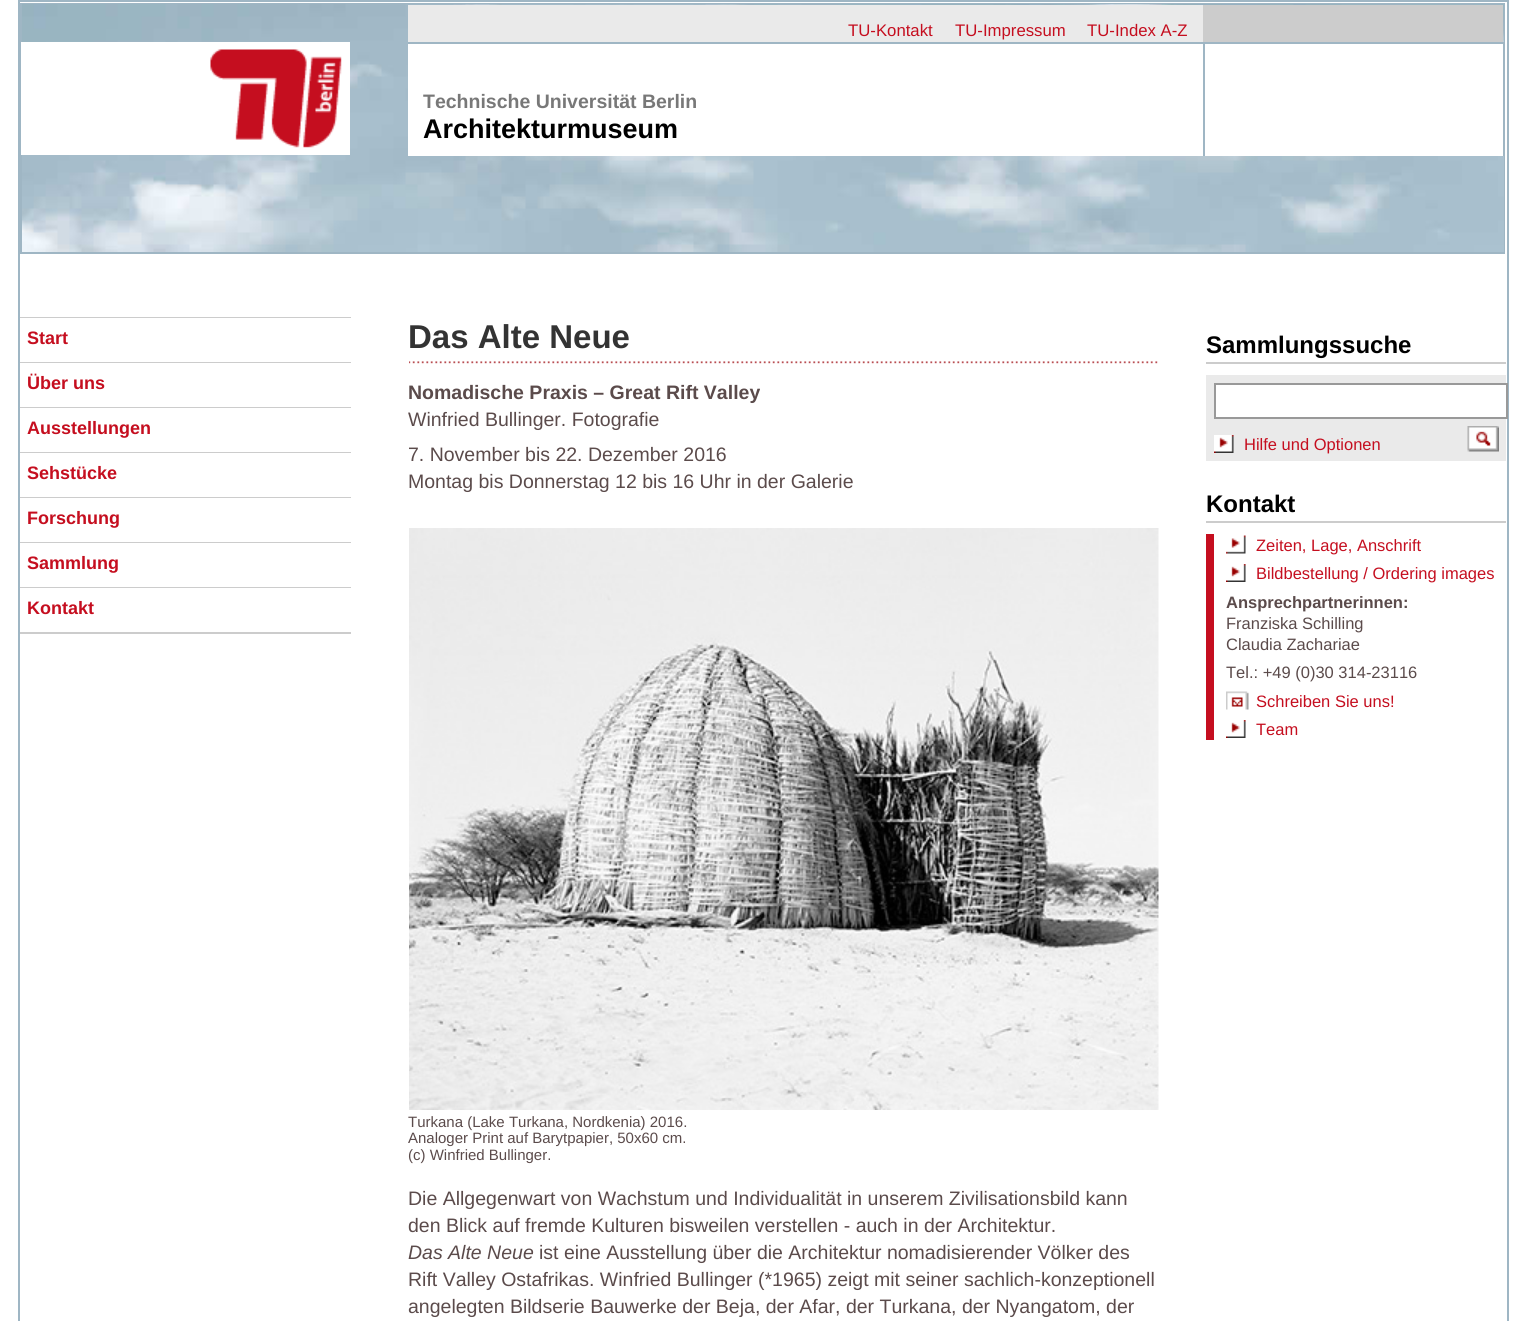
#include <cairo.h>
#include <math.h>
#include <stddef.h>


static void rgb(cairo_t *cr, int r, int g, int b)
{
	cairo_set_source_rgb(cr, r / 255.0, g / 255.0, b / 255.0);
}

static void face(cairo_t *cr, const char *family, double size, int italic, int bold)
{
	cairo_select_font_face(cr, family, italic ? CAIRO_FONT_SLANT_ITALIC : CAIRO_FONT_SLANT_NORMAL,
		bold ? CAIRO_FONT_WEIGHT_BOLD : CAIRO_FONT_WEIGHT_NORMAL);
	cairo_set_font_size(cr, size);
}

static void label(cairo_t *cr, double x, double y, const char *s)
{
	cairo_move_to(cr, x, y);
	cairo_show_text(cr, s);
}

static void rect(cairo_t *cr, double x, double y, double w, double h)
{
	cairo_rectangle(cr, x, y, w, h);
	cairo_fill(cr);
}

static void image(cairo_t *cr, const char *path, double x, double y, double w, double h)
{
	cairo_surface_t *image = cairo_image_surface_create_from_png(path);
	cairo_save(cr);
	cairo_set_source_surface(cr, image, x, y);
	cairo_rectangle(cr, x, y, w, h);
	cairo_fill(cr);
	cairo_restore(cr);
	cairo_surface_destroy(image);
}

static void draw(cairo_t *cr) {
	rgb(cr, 255, 255, 255);
	cairo_paint(cr);
	cairo_rectangle(cr, 19, 1, 1489, 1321);
	rgb(cr, 159, 182, 196);
	cairo_stroke(cr);
	cairo_rectangle(cr, 21, 4, 1483, 249);
	cairo_stroke(cr);
	image(cr, "image0.png", 22, 4, 1482, 248);
	rgb(cr, 234, 234, 234);
	rect(cr, 408, 5, 795, 37);
	face(cr, "Liberation Sans", 16.75, 0, 0);
	rgb(cr, 197, 14, 31);
	label(cr, 848, 36, "TU-Kontakt");
	label(cr, 955, 36, "TU-Impressum");
	label(cr, 1087, 36, "TU-Index A-Z");
	rgb(cr, 204, 204, 204);
	rect(cr, 1203, 5, 300, 37);
	rgb(cr, 255, 255, 255);
	rect(cr, 21, 42, 329, 113);
	image(cr, "image1.png", 210, 49, 132, 99);
	rect(cr, 408, 44, 795, 112);
	rgb(cr, 159, 182, 196);
	rect(cr, 408, 42, 1097, 2);
	rect(cr, 1203, 42, 2, 114);
	face(cr, "Liberation Sans", 19.5, 0, 1);
	rgb(cr, 120, 120, 120);
	label(cr, 423, 108, "Technische Universität Berlin");
	face(cr, "Liberation Sans", 27, 0, 1);
	rgb(cr, 0, 0, 0);
	label(cr, 423, 138, "Architekturmuseum");
	rgb(cr, 255, 255, 255);
	rect(cr, 1205, 44, 298, 112);
	rgb(cr, 159, 182, 196);
	rect(cr, 1503, 42, 1, 114);
	rgb(cr, 204, 204, 204);
	rect(cr, 20, 317, 331, 1);
	rect(cr, 20, 362, 331, 1);
	face(cr, "Liberation Sans", 18, 0, 1);
	rgb(cr, 197, 14, 31);
	label(cr, 27, 344, "Start");
	rgb(cr, 204, 204, 204);
	rect(cr, 20, 407, 331, 1);
	rgb(cr, 197, 14, 31);
	label(cr, 27, 389, "Über uns");
	rgb(cr, 204, 204, 204);
	rect(cr, 20, 452, 331, 1);
	rgb(cr, 197, 14, 31);
	label(cr, 27, 434, "Ausstellungen");
	rgb(cr, 204, 204, 204);
	rect(cr, 20, 497, 331, 1);
	rgb(cr, 197, 14, 31);
	label(cr, 27, 479, "Sehstücke");
	rgb(cr, 204, 204, 204);
	rect(cr, 20, 542, 331, 1);
	rgb(cr, 197, 14, 31);
	label(cr, 27, 524, "Forschung");
	rgb(cr, 204, 204, 204);
	rect(cr, 20, 587, 331, 1);
	rgb(cr, 197, 14, 31);
	label(cr, 27, 569, "Sammlung");
	rgb(cr, 204, 204, 204);
	rect(cr, 20, 632, 331, 2);
	rgb(cr, 197, 14, 31);
	label(cr, 27, 614, "Kontakt");
	image(cr, "image2.png", 409, 361, 749, 3);
	face(cr, "Liberation Sans", 33, 0, 1);
	rgb(cr, 51, 51, 51);
	label(cr, 408, 348, "Das Alte Neue");
	face(cr, "Liberation Sans", 19.5, 0, 1);
	rgb(cr, 91, 75, 75);
	label(cr, 408, 399, "Nomadische Praxis – Great Rift Valley");
	face(cr, "Liberation Sans", 19.5, 0, 0);
	label(cr, 408, 426, "Winfried Bullinger. Fotografie");
	label(cr, 408, 461, "7. November bis 22. Dezember 2016");
	label(cr, 408, 488, "Montag bis Donnerstag 12 bis 16 Uhr in der Galerie");
	image(cr, "image3.png", 409, 528, 750, 582);
	face(cr, "Liberation Sans", 15, 0, 0);
	label(cr, 408, 1127, "Turkana (Lake Turkana, Nordkenia) 2016.");
	label(cr, 408, 1143, "Analoger Print auf Barytpapier, 50x60 cm.");
	label(cr, 408, 1160, "(c) Winfried Bullinger.");
	face(cr, "Liberation Sans", 19.5, 0, 0);
	label(cr, 408, 1205, "Die Allgegenwart von Wachstum und Individualität in unserem Zivilisationsbild kann");
	label(cr, 408, 1232, "den Blick auf fremde Kulturen bisweilen verstellen - auch in der Architektur.");
	face(cr, "Liberation Sans", 19.5, 1, 0);
	label(cr, 408, 1259, "Das Alte Neue");
	face(cr, "Liberation Sans", 19.5, 0, 0);
	label(cr, 539, 1259, "ist eine Ausstellung über die Architektur nomadisierender Völker des");
	label(cr, 408, 1286, "Rift Valley Ostafrikas. Winfried Bullinger (*1965) zeigt mit seiner sachlich-konzeptionell");
	label(cr, 408, 1313, "angelegten Bildserie Bauwerke der Beja, der Afar, der Turkana, der Nyangatom, der");
	rgb(cr, 204, 204, 204);
	rect(cr, 1206, 362, 300, 2);
	face(cr, "Liberation Sans", 24, 0, 1);
	rgb(cr, 0, 0, 0);
	label(cr, 1206, 353, "Sammlungssuche");
	rgb(cr, 234, 234, 234);
	rect(cr, 1206, 375, 300, 86);
	rgb(cr, 255, 255, 255);
	cairo_rectangle(cr, 1215, 384, 292, 34);
	cairo_fill_preserve(cr);
	rgb(cr, 153, 153, 153);
	cairo_stroke(cr);
	image(cr, "image4.png", 1214, 435, 20, 18);
	face(cr, "Liberation Sans", 16.5, 0, 0);
	rgb(cr, 197, 14, 31);
	label(cr, 1244, 450, "Hilfe und Optionen");
	image(cr, "image5.png", 1467, 426, 32, 26);
	rgb(cr, 204, 204, 204);
	rect(cr, 1206, 521, 300, 2);
	face(cr, "Liberation Sans", 24, 0, 1);
	rgb(cr, 0, 0, 0);
	label(cr, 1206, 512, "Kontakt");
	rgb(cr, 197, 14, 31);
	rect(cr, 1206, 534, 8, 206);
	image(cr, "image6.png", 1226, 535, 20, 19);
	face(cr, "Liberation Sans", 16.5, 0, 0);
	label(cr, 1256, 551, "Zeiten, Lage, Anschrift");
	image(cr, "image7.png", 1226, 564, 20, 18);
	label(cr, 1256, 579, "Bildbestellung / Ordering images");
	face(cr, "Liberation Sans", 16.5, 0, 1);
	rgb(cr, 91, 75, 75);
	label(cr, 1226, 608, "Ansprechpartnerinnen:");
	face(cr, "Liberation Sans", 16.5, 0, 0);
	label(cr, 1226, 629, "Franziska Schilling");
	label(cr, 1226, 650, "Claudia Zachariae");
	label(cr, 1226, 678, "Tel.: +49 (0)30 314-23116");
	image(cr, "image8.png", 1226, 691, 23, 19);
	rgb(cr, 197, 14, 31);
	label(cr, 1256, 707, "Schreiben Sie uns!");
	image(cr, "image7.png", 1226, 720, 20, 18);
	label(cr, 1256, 735, "Team");
}

int main(void) {
	cairo_surface_t *surface = cairo_image_surface_create(CAIRO_FORMAT_RGB24, 1526, 1321);
	cairo_t *cr = cairo_create(surface);
	cairo_font_options_t *options = cairo_font_options_create();
	cairo_font_options_set_hint_metrics(options, CAIRO_HINT_METRICS_OFF);
	cairo_font_options_set_hint_style(options, CAIRO_HINT_STYLE_NONE);
	cairo_set_font_options(cr, options);
	cairo_set_miter_limit(cr, 4);
	draw(cr);
	cairo_surface_write_to_png(surface, "render.png");
	cairo_font_options_destroy(options);
	cairo_destroy(cr);
	cairo_surface_destroy(surface);
	return 0;
}
